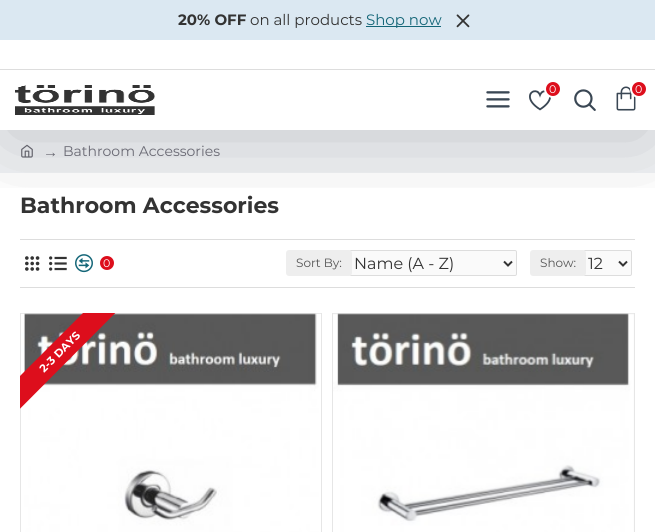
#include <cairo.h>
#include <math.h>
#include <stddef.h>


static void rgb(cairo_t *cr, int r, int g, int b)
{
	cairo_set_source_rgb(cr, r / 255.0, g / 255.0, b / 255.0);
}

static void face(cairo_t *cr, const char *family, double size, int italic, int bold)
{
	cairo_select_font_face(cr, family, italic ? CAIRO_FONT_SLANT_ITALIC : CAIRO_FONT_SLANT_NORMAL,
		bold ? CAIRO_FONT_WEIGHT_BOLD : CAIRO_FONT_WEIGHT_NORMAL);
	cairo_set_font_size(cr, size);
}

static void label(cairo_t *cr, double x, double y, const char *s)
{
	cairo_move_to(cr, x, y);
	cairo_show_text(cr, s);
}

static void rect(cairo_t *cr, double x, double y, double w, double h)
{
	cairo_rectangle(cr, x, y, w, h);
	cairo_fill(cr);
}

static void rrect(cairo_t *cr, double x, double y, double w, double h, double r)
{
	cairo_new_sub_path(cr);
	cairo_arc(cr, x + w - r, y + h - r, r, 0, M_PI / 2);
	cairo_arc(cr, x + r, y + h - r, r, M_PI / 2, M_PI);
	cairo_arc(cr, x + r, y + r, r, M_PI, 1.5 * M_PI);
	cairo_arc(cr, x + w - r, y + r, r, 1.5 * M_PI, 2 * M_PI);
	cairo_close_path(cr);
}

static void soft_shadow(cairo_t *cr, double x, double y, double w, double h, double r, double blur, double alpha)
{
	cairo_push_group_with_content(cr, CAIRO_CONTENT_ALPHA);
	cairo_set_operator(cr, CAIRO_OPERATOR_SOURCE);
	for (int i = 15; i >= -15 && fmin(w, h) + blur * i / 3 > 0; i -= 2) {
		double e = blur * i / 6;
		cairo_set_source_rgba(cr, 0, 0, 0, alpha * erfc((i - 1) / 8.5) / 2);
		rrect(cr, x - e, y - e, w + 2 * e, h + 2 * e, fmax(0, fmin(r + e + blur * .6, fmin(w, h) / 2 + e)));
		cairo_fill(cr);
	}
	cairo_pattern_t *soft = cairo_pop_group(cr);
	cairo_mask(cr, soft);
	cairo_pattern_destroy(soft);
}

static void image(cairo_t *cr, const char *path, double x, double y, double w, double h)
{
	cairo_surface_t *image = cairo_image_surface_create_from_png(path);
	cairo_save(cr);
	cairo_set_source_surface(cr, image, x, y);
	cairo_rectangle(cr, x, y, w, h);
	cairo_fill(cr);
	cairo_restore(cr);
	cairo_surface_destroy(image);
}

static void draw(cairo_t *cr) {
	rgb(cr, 255, 255, 255);
	cairo_paint(cr);
	rgb(cr, 219, 232, 242);
	rect(cr, 0, 0, 655, 40);
	face(cr, "Montserrat", 15, 0, 1);
	rgb(cr, 51, 51, 51);
	label(cr, 178, 25, "20% OFF");
	face(cr, "Montserrat", 15, 0, 0);
	label(cr, 250, 25, "on all products");
	rgb(cr, 20, 102, 120);
	rect(cr, 366, 26, 75, 1);
	label(cr, 366, 25, "Shop now");
	image(cr, "image0.png", 456, 14, 14, 14);
	rgb(cr, 240, 242, 245);
	rect(cr, 0, 130, 655, 43);
	image(cr, "image6.png", 21, 144, 12, 14);
	rgb(cr, 221, 221, 221);
	rect(cr, 20, 239, 615, 1);
	image(cr, "image7.png", 25, 256, 15, 15);
	image(cr, "image8.png", 49, 256, 18, 15);
	image(cr, "image9.png", 75, 254, 18, 19);
	rgb(cr, 221, 14, 28);
	cairo_arc(cr, 107, 263, 8, 0, 2 * M_PI);
	cairo_fill_preserve(cr);
	rgb(cr, 255, 255, 255);
	cairo_stroke(cr);
	rgb(cr, 250, 250, 250);
	rrect(cr, 349.5, 250.5, 167, 25, 1.5);
	cairo_fill_preserve(cr);
	rgb(cr, 221, 221, 221);
	cairo_set_line_width(cr, 1);
	cairo_stroke(cr);
	rgb(cr, 238, 238, 238);
	rrect(cr, 286, 250, 66, 26, 3);
	cairo_fill(cr);
	cairo_new_path(cr);
	cairo_move_to(cr, 504, 261.5);
	cairo_line_to(cr, 508, 265.5);
	cairo_line_to(cr, 512, 261.5);
	rgb(cr, 51, 51, 51);
	cairo_set_line_width(cr, 2);
	cairo_stroke(cr);
	rgb(cr, 250, 250, 250);
	rrect(cr, 583.5, 250.5, 48, 25, 1.5);
	cairo_fill_preserve(cr);
	rgb(cr, 221, 221, 221);
	cairo_set_line_width(cr, 1);
	cairo_stroke(cr);
	rgb(cr, 238, 238, 238);
	rrect(cr, 530, 250, 56, 26, 3);
	cairo_fill(cr);
	cairo_new_path(cr);
	cairo_move_to(cr, 619, 261.5);
	cairo_line_to(cr, 623, 265.5);
	cairo_line_to(cr, 627, 261.5);
	rgb(cr, 51, 51, 51);
	cairo_set_line_width(cr, 2);
	cairo_stroke(cr);
	cairo_save(cr);
	cairo_rectangle(cr, 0, 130, 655, 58);
	cairo_clip(cr);
	rgb(cr, 0, 0, 0);
	soft_shadow(cr, 10, 95, 635, 40, 0, 45, 0.2);
	cairo_restore(cr);
	rgb(cr, 255, 255, 255);
	rect(cr, 0, 40, 655, 29);
	rgb(cr, 221, 221, 221);
	rect(cr, 0, 69, 655, 1);
	image(cr, "image1.png", 15, 85, 140, 30);
	image(cr, "image2.png", 486, 91, 24, 17);
	image(cr, "image3.png", 529, 90, 22, 21);
	rgb(cr, 221, 14, 28);
	cairo_arc(cr, 553, 89, 8, 0, 2 * M_PI);
	cairo_fill_preserve(cr);
	rgb(cr, 255, 255, 255);
	cairo_stroke(cr);
	face(cr, "Montserrat", 11, 0, 0);
	label(cr, 549, 93, "0");
	image(cr, "image4.png", 574, 89, 22, 22);
	image(cr, "image5.png", 616, 86, 20, 25);
	rgb(cr, 221, 14, 28);
	cairo_arc(cr, 639, 89, 8, 0, 2 * M_PI);
	cairo_fill_preserve(cr);
	rgb(cr, 255, 255, 255);
	cairo_stroke(cr);
	label(cr, 635, 93, "0");
	face(cr, "Liberation Serif", 15, 0, 0);
	rgb(cr, 105, 105, 115);
	label(cr, 43, 157, "→");
	face(cr, "Montserrat", 14, 0, 0);
	label(cr, 63, 156, "Bathroom Accessories");
	face(cr, "Montserrat", 22, 0, 1);
	rgb(cr, 51, 51, 51);
	label(cr, 20, 213, "Bathroom Accessories");
	rgb(cr, 221, 221, 221);
	rect(cr, 20, 287, 615, 1);
	face(cr, "Montserrat", 11, 0, 0);
	rgb(cr, 255, 255, 255);
	label(cr, 103, 267, "0");
	face(cr, "Montserrat", 12, 0, 0);
	rgb(cr, 85, 85, 85);
	label(cr, 296, 267, "Sort By:");
	face(cr, "Montserrat", 16, 0, 0);
	rgb(cr, 51, 51, 51);
	label(cr, 354, 269, "Name (A - Z)");
	face(cr, "Montserrat", 12, 0, 0);
	rgb(cr, 85, 85, 85);
	label(cr, 540, 267, "Show:");
	face(cr, "Montserrat", 16, 0, 0);
	rgb(cr, 51, 51, 51);
	label(cr, 588, 269, "12");
	cairo_rectangle(cr, 20.5, 313.5, 301, 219);
	rgb(cr, 230, 230, 230);
	cairo_set_line_width(cr, 1);
	cairo_stroke(cr);
	image(cr, "image10.png", 21, 313, 300, 219);
	cairo_save(cr);
	cairo_rectangle(cr, 20, 313, 302, 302);
	cairo_clip(cr);
	rgb(cr, 221, 14, 28);
	cairo_new_path(cr);
	cairo_move_to(cr, -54, 450);
	cairo_line_to(cr, 158, 238);
	cairo_line_to(cr, 174, 254);
	cairo_line_to(cr, -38, 467);
	cairo_close_path(cr);
	cairo_fill(cr);
	cairo_restore(cr);
	face(cr, "Montserrat", 11, 0, 1);
	rgb(cr, 255, 255, 255);
	cairo_save(cr);
	cairo_translate(cr, 44, 373);
	cairo_rotate(cr, -45 * M_PI / 180);
	label(cr, 0, 0, "2-3 DAYS");
	cairo_restore(cr);
	cairo_rectangle(cr, 332.5, 313.5, 302, 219);
	rgb(cr, 230, 230, 230);
	cairo_stroke(cr);
	rgb(cr, 238, 238, 238);
	rect(cr, 333, 314, 301, 218);
	image(cr, "image11.png", 333, 313, 301, 219);
}

int main(void) {
	cairo_surface_t *surface = cairo_image_surface_create(CAIRO_FORMAT_RGB24, 655, 532);
	cairo_t *cr = cairo_create(surface);
	cairo_font_options_t *options = cairo_font_options_create();
	cairo_font_options_set_hint_metrics(options, CAIRO_HINT_METRICS_OFF);
	cairo_font_options_set_hint_style(options, CAIRO_HINT_STYLE_NONE);
	cairo_set_font_options(cr, options);
	cairo_set_miter_limit(cr, 4);
	draw(cr);
	cairo_surface_write_to_png(surface, "render.png");
	cairo_font_options_destroy(options);
	cairo_destroy(cr);
	cairo_surface_destroy(surface);
	return 0;
}
